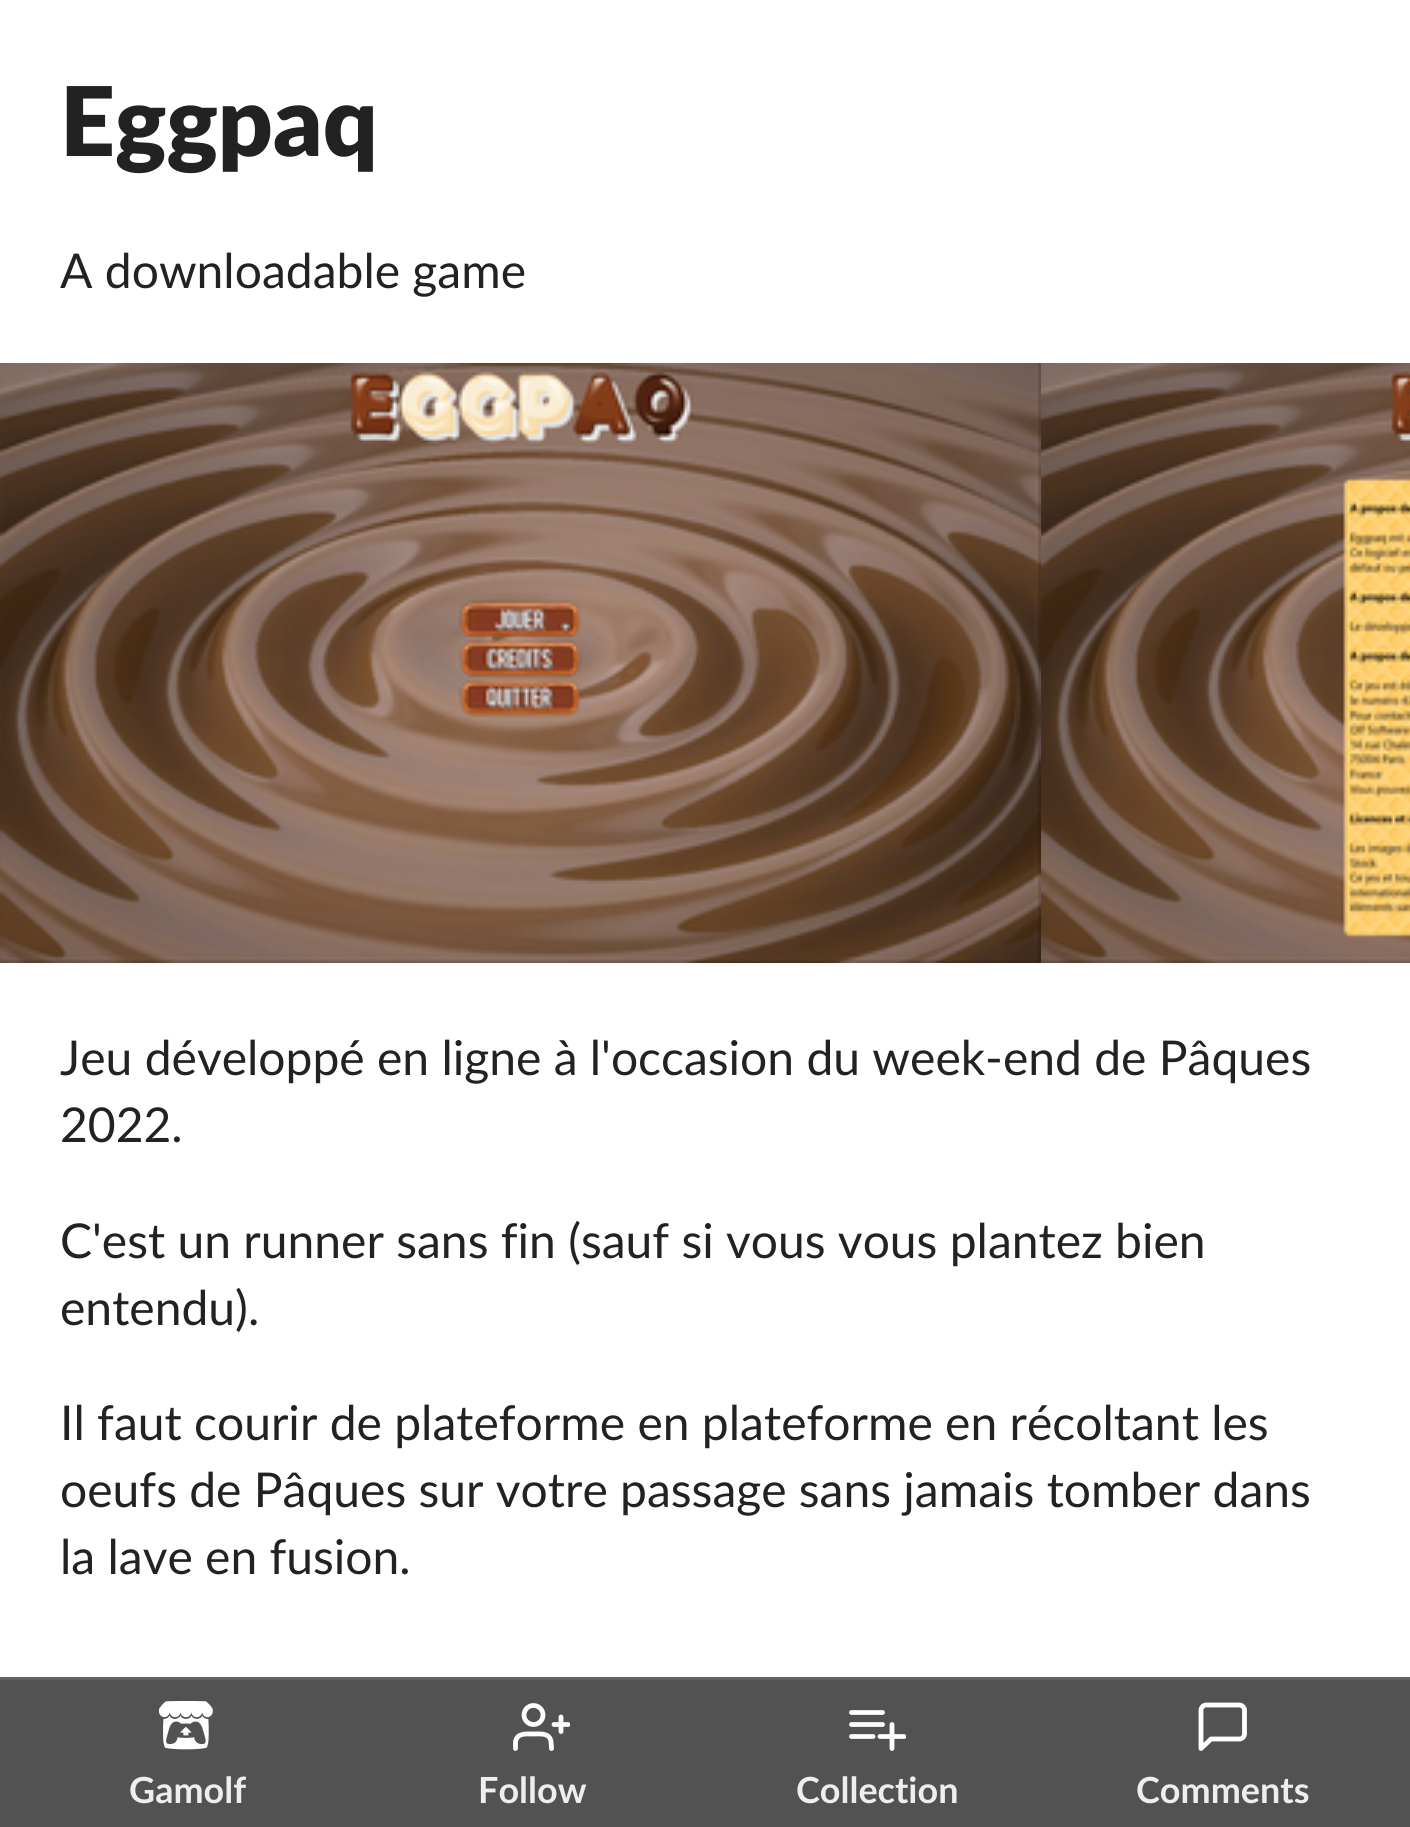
#include <cairo.h>
#include <math.h>
#include <stddef.h>


static void rgb(cairo_t *cr, int r, int g, int b)
{
	cairo_set_source_rgb(cr, r / 255.0, g / 255.0, b / 255.0);
}

static void face(cairo_t *cr, const char *family, double size, int italic, int bold)
{
	cairo_select_font_face(cr, family, italic ? CAIRO_FONT_SLANT_ITALIC : CAIRO_FONT_SLANT_NORMAL,
		bold ? CAIRO_FONT_WEIGHT_BOLD : CAIRO_FONT_WEIGHT_NORMAL);
	cairo_set_font_size(cr, size);
}

static void label(cairo_t *cr, double x, double y, const char *s)
{
	cairo_move_to(cr, x, y);
	cairo_show_text(cr, s);
}

static void rect(cairo_t *cr, double x, double y, double w, double h)
{
	cairo_rectangle(cr, x, y, w, h);
	cairo_fill(cr);
}

static void image(cairo_t *cr, const char *path, double x, double y, double w, double h)
{
	cairo_surface_t *image = cairo_image_surface_create_from_png(path);
	cairo_save(cr);
	cairo_set_source_surface(cr, image, x, y);
	cairo_rectangle(cr, x, y, w, h);
	cairo_fill(cr);
	cairo_restore(cr);
	cairo_surface_destroy(image);
}

static void draw(cairo_t *cr) {
	rgb(cr, 255, 255, 255);
	cairo_paint(cr);
	face(cr, "Lato Black", 96, 0, 0);
	rgb(cr, 34, 34, 34);
	label(cr, 60, 156, "Eggpaq");
	face(cr, "Lato", 48, 0, 0);
	label(cr, 60, 288, "A downloadable game");
	image(cr, "image0.png", 0, 363, 1041, 600);
	image(cr, "image1.png", 1041, 363, 369, 600);
	label(cr, 60, 1075, "Jeu développé en ligne à l'occasion du week-end de Pâques");
	label(cr, 60, 1142, "2022.");
	label(cr, 60, 1258, "C'est un runner sans fin (sauf si vous vous plantez bien");
	label(cr, 60, 1325, "entendu).");
	label(cr, 60, 1440, "Il faut courir de plateforme en plateforme en récoltant les");
	label(cr, 60, 1507, "oeufs de Pâques sur votre passage sans jamais tomber dans");
	label(cr, 60, 1574, "la lave en fusion.");
	rgb(cr, 82, 82, 82);
	rect(cr, 0, 1680, 1410, 147);
	rgb(cr, 99, 99, 99);
	rect(cr, 0, 1677, 1410, 3);
	image(cr, "image2.png", 159, 1701, 54, 49);
	face(cr, "Lato", 36, 0, 1);
	rgb(cr, 238, 238, 238);
	label(cr, 129, 1803, "Gamolf");
	cairo_new_path(cr);
	cairo_move_to(cr, 551.5, 1748.5);
	cairo_line_to(cr, 551, 1741.5);
	cairo_curve_to(cr, 549.5, 1732.5, 540, 1734, 533.5, 1734);
	cairo_curve_to(cr, 526.5, 1734, 517.5, 1732.5, 515.5, 1741.5);
	cairo_line_to(cr, 515.5, 1748.5);
	rgb(cr, 255, 255, 255);
	cairo_set_line_width(cr, 4.8);
	cairo_set_line_cap(cr, CAIRO_LINE_CAP_ROUND);
	cairo_set_line_join(cr, CAIRO_LINE_JOIN_ROUND);
	cairo_stroke(cr);
	cairo_arc(cr, 533.5, 1715, 9.5, 0, 2 * M_PI);
	cairo_set_line_cap(cr, CAIRO_LINE_CAP_BUTT);
	cairo_set_line_join(cr, CAIRO_LINE_JOIN_MITER);
	cairo_stroke(cr);
	cairo_new_path(cr);
	cairo_move_to(cr, 561, 1717);
	cairo_line_to(cr, 561, 1731.5);
	cairo_set_line_cap(cr, CAIRO_LINE_CAP_ROUND);
	cairo_set_line_join(cr, CAIRO_LINE_JOIN_ROUND);
	cairo_stroke(cr);
	cairo_save(cr);
	cairo_rectangle(cr, 513, 1698, 57, 57);
	cairo_clip(cr);
	cairo_new_path(cr);
	cairo_move_to(cr, 568, 1724.5);
	cairo_line_to(cr, 554, 1724.5);
	cairo_stroke(cr);
	cairo_restore(cr);
	rgb(cr, 238, 238, 238);
	label(cr, 478, 1803, "Follow");
	cairo_new_path(cr);
	cairo_move_to(cr, 851.5, 1712.5);
	cairo_line_to(cr, 882.5, 1712.5);
	cairo_move_to(cr, 851.5, 1724.5);
	cairo_line_to(cr, 882.5, 1724.5);
	cairo_move_to(cr, 851.5, 1736.5);
	cairo_line_to(cr, 873, 1736.5);
	cairo_move_to(cr, 892, 1724.5);
	cairo_line_to(cr, 892, 1748.5);
	rgb(cr, 255, 255, 255);
	cairo_stroke(cr);
	cairo_save(cr);
	cairo_rectangle(cr, 849, 1698, 57, 57);
	cairo_clip(cr);
	cairo_new_path(cr);
	cairo_move_to(cr, 880, 1736.5);
	cairo_line_to(cr, 904, 1736.5);
	cairo_stroke(cr);
	cairo_restore(cr);
	rgb(cr, 238, 238, 238);
	label(cr, 796, 1803, "Collection");
	cairo_new_path(cr);
	cairo_move_to(cr, 1244.5, 1734);
	cairo_curve_to(cr, 1244.5, 1736.5, 1242, 1739, 1239.5, 1739);
	cairo_line_to(cr, 1211, 1739);
	cairo_line_to(cr, 1201, 1748.5);
	cairo_line_to(cr, 1201, 1710);
	cairo_curve_to(cr, 1201, 1707.5, 1203.5, 1705, 1206, 1705);
	cairo_line_to(cr, 1239.5, 1705);
	cairo_curve_to(cr, 1242, 1705, 1244.5, 1707.5, 1244.5, 1710);
	cairo_close_path(cr);
	rgb(cr, 255, 255, 255);
	cairo_stroke(cr);
	rgb(cr, 238, 238, 238);
	label(cr, 1136, 1803, "Comments");
}

int main(void) {
	cairo_surface_t *surface = cairo_image_surface_create(CAIRO_FORMAT_RGB24, 1410, 1827);
	cairo_t *cr = cairo_create(surface);
	cairo_font_options_t *options = cairo_font_options_create();
	cairo_font_options_set_hint_metrics(options, CAIRO_HINT_METRICS_OFF);
	cairo_font_options_set_hint_style(options, CAIRO_HINT_STYLE_NONE);
	cairo_set_font_options(cr, options);
	cairo_set_miter_limit(cr, 4);
	draw(cr);
	cairo_surface_write_to_png(surface, "render.png");
	cairo_font_options_destroy(options);
	cairo_destroy(cr);
	cairo_surface_destroy(surface);
	return 0;
}
